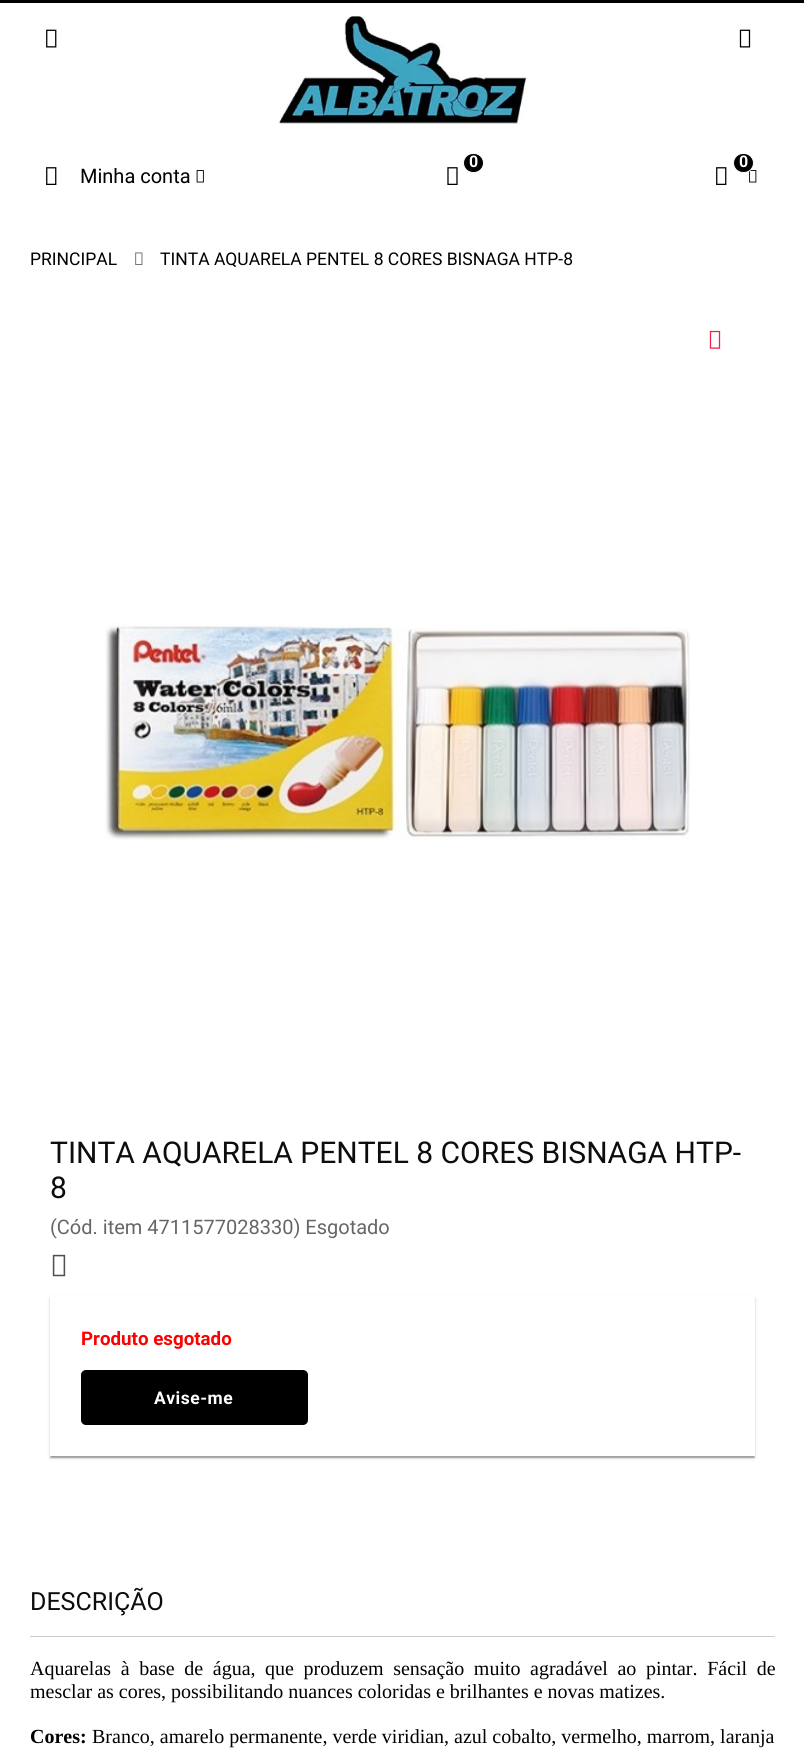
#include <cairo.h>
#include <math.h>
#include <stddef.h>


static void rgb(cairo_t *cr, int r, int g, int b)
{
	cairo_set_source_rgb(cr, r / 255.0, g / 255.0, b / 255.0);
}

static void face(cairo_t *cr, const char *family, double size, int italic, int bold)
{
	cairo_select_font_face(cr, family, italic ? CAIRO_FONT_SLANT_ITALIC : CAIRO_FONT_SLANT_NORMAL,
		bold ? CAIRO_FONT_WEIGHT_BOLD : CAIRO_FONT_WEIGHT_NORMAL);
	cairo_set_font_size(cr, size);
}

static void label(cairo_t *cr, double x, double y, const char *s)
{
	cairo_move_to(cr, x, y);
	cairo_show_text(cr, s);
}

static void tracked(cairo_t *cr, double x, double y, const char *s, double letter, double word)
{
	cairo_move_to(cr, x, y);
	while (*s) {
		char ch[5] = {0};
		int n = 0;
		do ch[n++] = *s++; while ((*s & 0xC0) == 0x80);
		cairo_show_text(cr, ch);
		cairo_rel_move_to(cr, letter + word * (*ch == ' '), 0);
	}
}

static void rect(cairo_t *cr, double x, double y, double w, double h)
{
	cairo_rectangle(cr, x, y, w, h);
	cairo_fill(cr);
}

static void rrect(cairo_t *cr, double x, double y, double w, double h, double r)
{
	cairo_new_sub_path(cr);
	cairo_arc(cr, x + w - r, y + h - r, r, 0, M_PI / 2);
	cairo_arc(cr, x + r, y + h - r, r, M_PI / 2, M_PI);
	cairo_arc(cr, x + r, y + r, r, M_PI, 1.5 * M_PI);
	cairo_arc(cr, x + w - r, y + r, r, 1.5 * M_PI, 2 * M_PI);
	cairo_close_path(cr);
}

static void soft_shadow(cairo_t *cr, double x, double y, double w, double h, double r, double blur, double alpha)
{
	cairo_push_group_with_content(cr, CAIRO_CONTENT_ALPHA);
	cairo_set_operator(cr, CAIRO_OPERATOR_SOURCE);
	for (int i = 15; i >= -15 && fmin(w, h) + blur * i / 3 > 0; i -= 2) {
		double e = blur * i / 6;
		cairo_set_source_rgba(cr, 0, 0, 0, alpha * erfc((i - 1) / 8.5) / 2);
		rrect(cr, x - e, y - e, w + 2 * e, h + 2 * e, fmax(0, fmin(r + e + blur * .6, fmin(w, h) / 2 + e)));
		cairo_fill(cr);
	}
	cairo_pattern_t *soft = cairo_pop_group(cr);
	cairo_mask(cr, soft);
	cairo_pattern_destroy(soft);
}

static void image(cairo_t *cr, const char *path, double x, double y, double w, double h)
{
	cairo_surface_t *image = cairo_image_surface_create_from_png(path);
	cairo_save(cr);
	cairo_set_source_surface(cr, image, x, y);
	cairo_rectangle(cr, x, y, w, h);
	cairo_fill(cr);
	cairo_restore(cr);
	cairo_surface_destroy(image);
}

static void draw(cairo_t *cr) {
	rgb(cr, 255, 255, 255);
	cairo_paint(cr);
	rgb(cr, 0, 0, 0);
	rect(cr, 0, 0, 804, 3);
	image(cr, "image0.png", 46, 29, 11, 19);
	image(cr, "image1.png", 278, 16, 249, 108);
	image(cr, "image2.png", 739, 29, 12, 19);
	rrect(cr, 463.5, 153.5, 20, 19, 9.5);
	cairo_fill_preserve(cr);
	rgb(cr, 255, 255, 255);
	cairo_set_line_width(cr, 1);
	cairo_stroke(cr);
	face(cr, "Roboto", 16, 0, 1);
	label(cr, 469, 167, "0");
	image(cr, "image3.png", 447, 167, 11, 18);
	image(cr, "image5.png", 749, 170, 8, 13);
	rgb(cr, 0, 0, 0);
	rrect(cr, 733.5, 153.5, 20, 19, 9.5);
	cairo_fill_preserve(cr);
	rgb(cr, 255, 255, 255);
	cairo_stroke(cr);
	label(cr, 739, 167, "0");
	image(cr, "image4.png", 716, 167, 11, 18);
	image(cr, "image4.png", 46, 167, 11, 18);
	face(cr, "Roboto", 20, 0, 0);
	rgb(cr, 0, 0, 0);
	label(cr, 80, 183, "Minha conta");
	image(cr, "image6.png", 196, 170, 8, 13);
	face(cr, "Roboto", 17.5, 0, 0);
	label(cr, 30, 265, "PRINCIPAL");
	image(cr, "image7.png", 135, 252, 8, 13);
	label(cr, 160, 265, "TINTA AQUARELA PENTEL 8 CORES BISNAGA HTP-8");
	image(cr, "image8.png", 709, 330, 12, 19);
	image(cr, "image9.png", 105, 623, 585, 218);
	face(cr, "Roboto", 30, 0, 0);
	rgb(cr, 13, 13, 13);
	label(cr, 50, 1163, "TINTA AQUARELA PENTEL 8 CORES BISNAGA HTP-");
	label(cr, 50, 1198, "8");
	face(cr, "Roboto", 20, 0, 0);
	rgb(cr, 102, 102, 102);
	label(cr, 50, 1234, "(Cód. item 4711577028330) Esgotado");
	image(cr, "image10.png", 52, 1254, 14, 23);
	rgb(cr, 0, 0, 0);
	soft_shadow(cr, 50, 1298, 705, 160, 0, 2, 0.12);
	soft_shadow(cr, 50, 1298, 705, 160, 0, 0.5, 0.14);
	soft_shadow(cr, 51, 1300, 703, 158, 0, 0.5, 0.2);
	rgb(cr, 255, 255, 255);
	rect(cr, 50, 1296, 705, 160);
	face(cr, "Roboto", 18.75, 0, 1);
	rgb(cr, 255, 0, 0);
	label(cr, 81, 1345, "Produto esgotado");
	rgb(cr, 0, 0, 0);
	rrect(cr, 81, 1370, 227, 55, 5);
	cairo_fill(cr);
	face(cr, "Roboto", 17.5, 0, 1);
	rgb(cr, 255, 255, 255);
	tracked(cr, 154, 1404, "Avise-me", 0.5, 0);
	rgb(cr, 204, 204, 204);
	rect(cr, 30, 1636, 745, 1);
	face(cr, "Roboto", 25, 0, 0);
	rgb(cr, 13, 13, 13);
	label(cr, 30, 1610, "DESCRIÇÃO");
	face(cr, "Liberation Serif", 20, 0, 0);
	rgb(cr, 0, 0, 0);
	tracked(cr, 30, 1675, "Aquarelas à base de água, que produzem sensação muito agradável ao pintar. Fácil de", 0, 4.6);
	label(cr, 30, 1698, "mesclar as cores, possibilitando nuances coloridas e brilhantes e novas matizes.");
	face(cr, "Liberation Serif", 20, 0, 1);
	label(cr, 30, 1743, "Cores:");
	face(cr, "Liberation Serif", 20, 0, 0);
	label(cr, 92, 1743, "Branco, amarelo permanente, verde viridian, azul cobalto, vermelho, marrom, laranja");
}

int main(void) {
	cairo_surface_t *surface = cairo_image_surface_create(CAIRO_FORMAT_RGB24, 804, 1760);
	cairo_t *cr = cairo_create(surface);
	cairo_font_options_t *options = cairo_font_options_create();
	cairo_font_options_set_hint_metrics(options, CAIRO_HINT_METRICS_OFF);
	cairo_font_options_set_hint_style(options, CAIRO_HINT_STYLE_NONE);
	cairo_set_font_options(cr, options);
	cairo_set_miter_limit(cr, 4);
	draw(cr);
	cairo_surface_write_to_png(surface, "render.png");
	cairo_font_options_destroy(options);
	cairo_destroy(cr);
	cairo_surface_destroy(surface);
	return 0;
}
